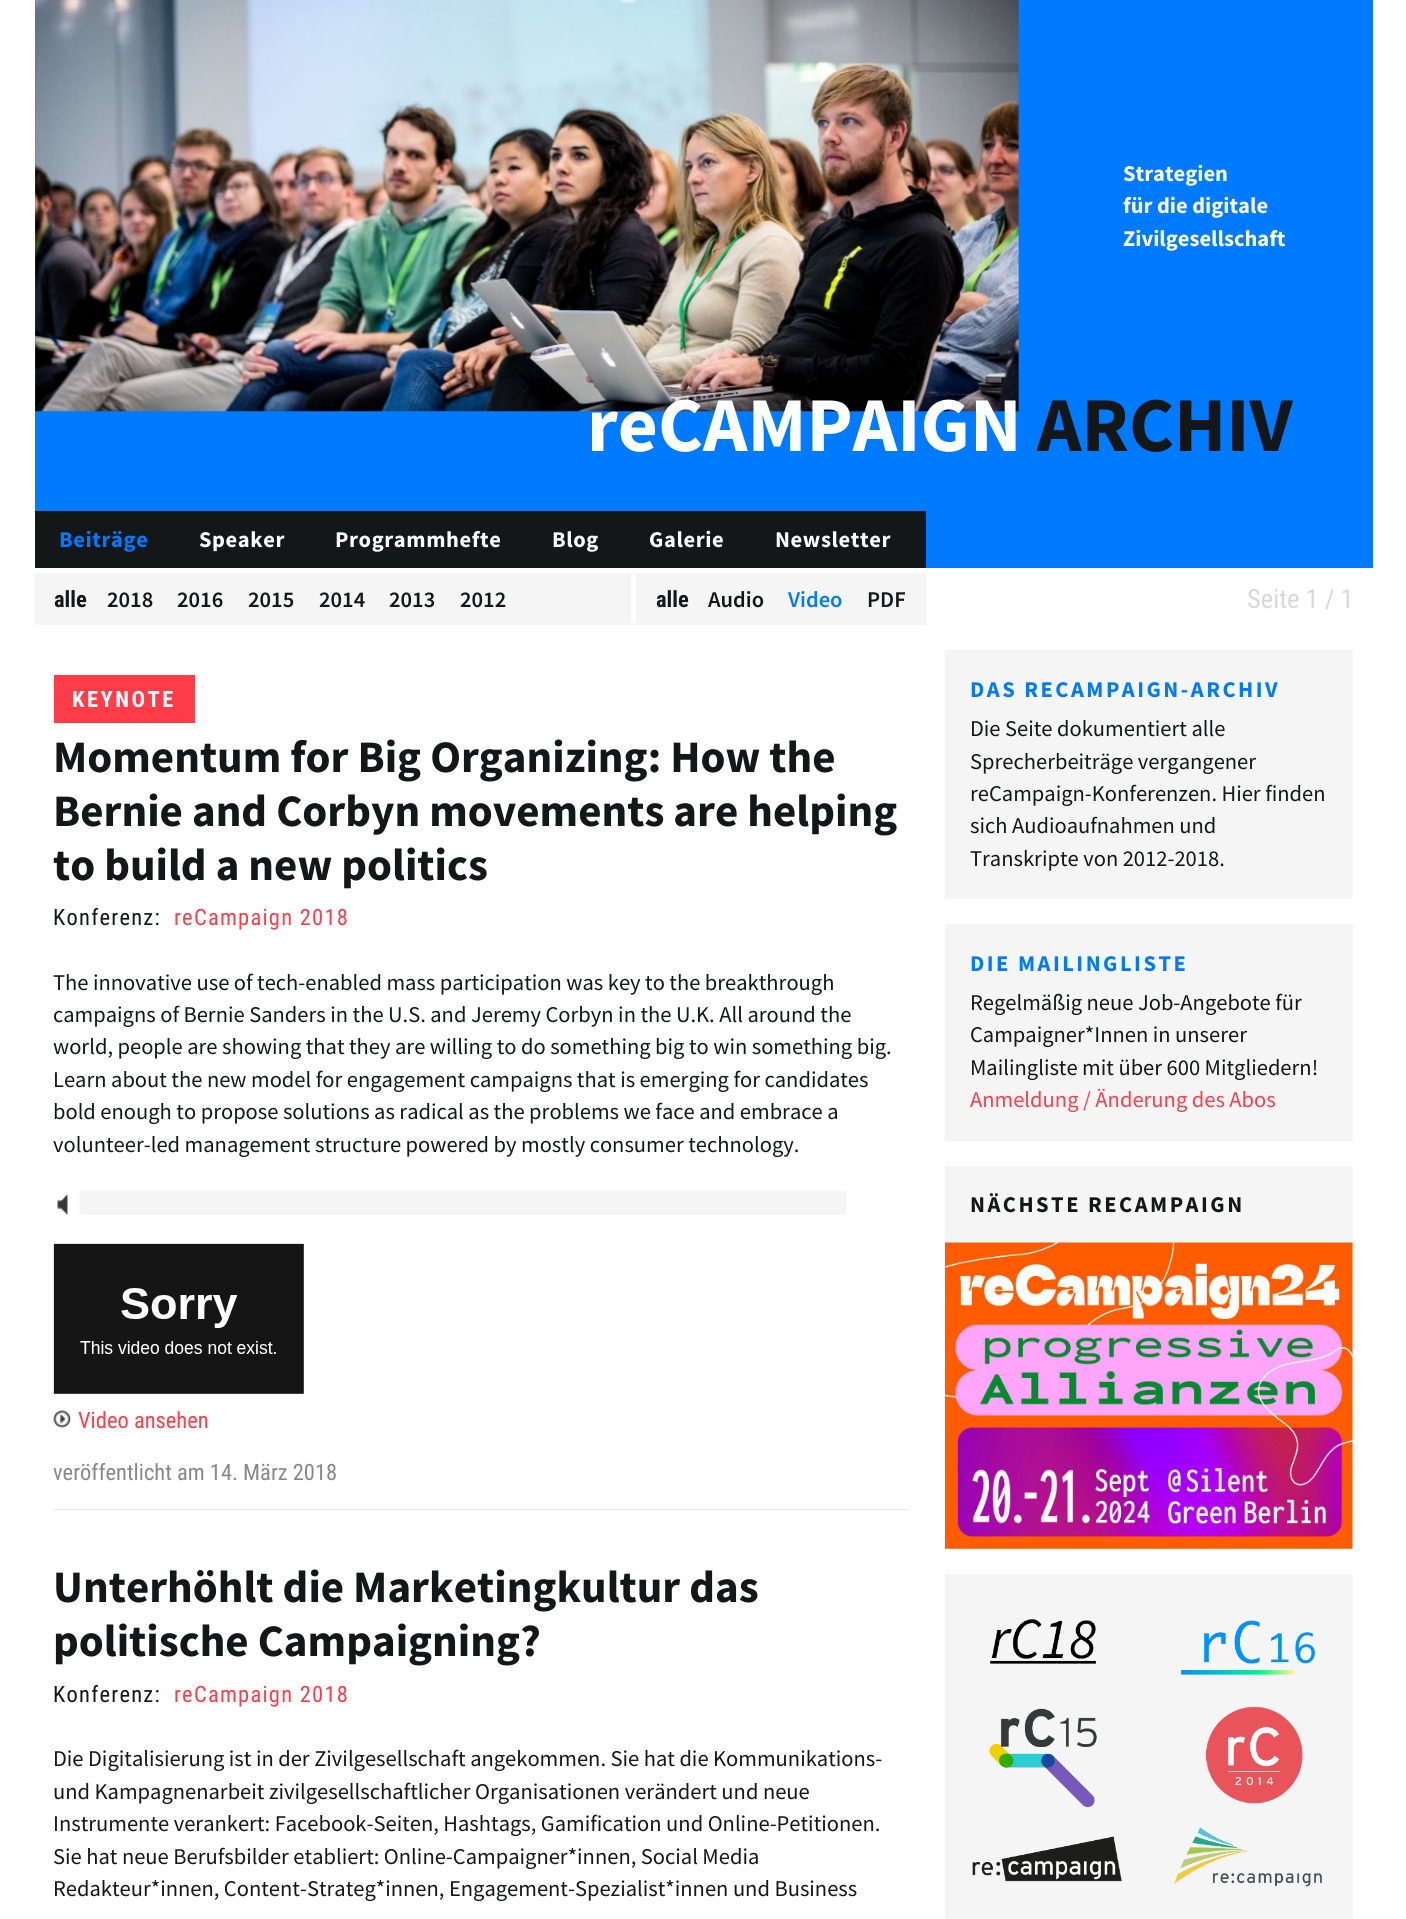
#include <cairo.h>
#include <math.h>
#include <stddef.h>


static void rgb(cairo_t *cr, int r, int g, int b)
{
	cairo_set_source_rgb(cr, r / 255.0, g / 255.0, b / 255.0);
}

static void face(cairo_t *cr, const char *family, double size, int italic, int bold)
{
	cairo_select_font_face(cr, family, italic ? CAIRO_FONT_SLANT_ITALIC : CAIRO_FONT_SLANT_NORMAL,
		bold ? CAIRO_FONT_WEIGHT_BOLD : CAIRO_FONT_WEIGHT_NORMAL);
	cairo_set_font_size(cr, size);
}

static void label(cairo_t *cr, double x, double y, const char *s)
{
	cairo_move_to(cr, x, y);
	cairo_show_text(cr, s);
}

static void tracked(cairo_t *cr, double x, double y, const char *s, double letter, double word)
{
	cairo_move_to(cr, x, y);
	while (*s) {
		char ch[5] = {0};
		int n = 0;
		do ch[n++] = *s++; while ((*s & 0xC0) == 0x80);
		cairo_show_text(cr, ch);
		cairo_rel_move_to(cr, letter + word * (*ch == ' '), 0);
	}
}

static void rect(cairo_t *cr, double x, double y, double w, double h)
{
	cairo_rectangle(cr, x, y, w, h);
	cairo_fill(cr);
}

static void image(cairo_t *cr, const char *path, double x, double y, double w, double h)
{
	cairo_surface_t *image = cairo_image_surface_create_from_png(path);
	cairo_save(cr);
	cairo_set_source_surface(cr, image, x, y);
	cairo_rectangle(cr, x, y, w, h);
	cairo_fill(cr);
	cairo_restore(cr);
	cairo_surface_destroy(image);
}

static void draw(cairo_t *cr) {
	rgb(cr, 255, 255, 255);
	cairo_paint(cr);
	rgb(cr, 0, 122, 255);
	rect(cr, 35, 0, 1338, 568);
	image(cr, "image0.png", 35, 0, 984, 412);
	face(cr, "Source Sans Pro", 22.5, 0, 1);
	rgb(cr, 255, 255, 255);
	label(cr, 1123, 181, "Strategien");
	label(cr, 1123, 213, "für die digitale");
	label(cr, 1123, 246, "Zivilgesellschaft");
	face(cr, "Source Sans Pro", 77.5, 0, 1);
	label(cr, 587, 451, "reCAMPAIGN");
	rgb(cr, 19, 23, 24);
	label(cr, 1037, 451, "ARCHIV");
	rect(cr, 35, 511, 891, 57);
	face(cr, "Source Sans Pro", 22.5, 0, 1);
	rgb(cr, 0, 122, 255);
	tracked(cr, 59, 547, "Beiträge", 0.6, 0);
	rgb(cr, 255, 255, 255);
	tracked(cr, 199, 547, "Speaker", 0.6, 0);
	tracked(cr, 335, 547, "Programmhefte", 0.6, 0);
	tracked(cr, 552, 547, "Blog", 0.6, 0);
	tracked(cr, 649, 547, "Galerie", 0.6, 0);
	tracked(cr, 775, 547, "Newsletter", 0.6, 0);
	rgb(cr, 245, 245, 245);
	rect(cr, 35, 573, 891, 52);
	face(cr, "Roboto Condensed", 22.5, 0, 1);
	rgb(cr, 19, 23, 24);
	label(cr, 54, 607, "alle");
	face(cr, "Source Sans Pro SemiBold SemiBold", 22.5, 0, 0);
	label(cr, 107, 607, "2018");
	label(cr, 177, 607, "2016");
	label(cr, 248, 607, "2015");
	label(cr, 319, 607, "2014");
	label(cr, 389, 607, "2013");
	label(cr, 460, 607, "2012");
	rgb(cr, 255, 255, 255);
	rect(cr, 631, 574, 5, 49);
	face(cr, "Roboto Condensed", 22.5, 0, 1);
	rgb(cr, 19, 23, 24);
	label(cr, 656, 607, "alle");
	face(cr, "Source Sans Pro SemiBold SemiBold", 22.5, 0, 0);
	label(cr, 708, 607, "Audio");
	rgb(cr, 0, 122, 255);
	label(cr, 788, 607, "Video");
	rgb(cr, 19, 23, 24);
	label(cr, 867, 607, "PDF");
	face(cr, "Roboto Condensed", 26.5, 0, 0);
	rgb(cr, 216, 216, 216);
	label(cr, 1247, 608, "Seite 1 / 1");
	rgb(cr, 255, 60, 72);
	rect(cr, 54, 675, 141, 48);
	face(cr, "Roboto Condensed", 22.5, 0, 1);
	rgb(cr, 255, 255, 255);
	tracked(cr, 72, 707, "KEYNOTE", 2.5, 0);
	face(cr, "Source Sans Pro", 45, 0, 1);
	rgb(cr, 19, 23, 24);
	label(cr, 53, 772, "Momentum for Big Organizing: How the");
	label(cr, 53, 826, "Bernie and Corbyn movements are helping");
	label(cr, 53, 880, "to build a new politics");
	face(cr, "Roboto Condensed", 22.5, 0, 0);
	tracked(cr, 53, 925, "Konferenz:", 1.25, 0);
	rgb(cr, 255, 60, 72);
	tracked(cr, 174, 925, "reCampaign 2018", 1.25, 0);
	face(cr, "Source Sans Pro", 22.5, 0, 0);
	rgb(cr, 19, 23, 24);
	label(cr, 53, 990, "The innovative use of tech-enabled mass participation was key to the breakthrough");
	label(cr, 53, 1022, "campaigns of Bernie Sanders in the U.S. and Jeremy Corbyn in the U.K. All around the");
	label(cr, 53, 1054, "world, people are showing that they are willing to do something big to win something big.");
	label(cr, 53, 1087, "Learn about the new model for engagement campaigns that is emerging for candidates");
	label(cr, 53, 1119, "bold enough to propose solutions as radical as the problems we face and embrace a");
	label(cr, 53, 1152, "volunteer-led management structure powered by mostly consumer technology.");
	image(cr, "image1.png", 57, 1193, 11, 22);
	image(cr, "image2.png", 79, 1190, 768, 25);
	image(cr, "image3.png", 53, 1243, 251, 151);
	image(cr, "image4.png", 53, 1410, 19, 18);
	face(cr, "Roboto Condensed", 22.5, 0, 0);
	rgb(cr, 255, 60, 72);
	label(cr, 78, 1428, "Video ansehen");
	rgb(cr, 136, 136, 136);
	label(cr, 53, 1480, "veröffentlicht am 14. März 2018");
	rgb(cr, 230, 230, 230);
	rect(cr, 54, 1509, 854, 1);
	face(cr, "Source Sans Pro", 45, 0, 1);
	rgb(cr, 19, 23, 24);
	label(cr, 53, 1602, "Unterhöhlt die Marketingkultur das");
	label(cr, 53, 1656, "politische Campaigning?");
	face(cr, "Roboto Condensed", 22.5, 0, 0);
	tracked(cr, 53, 1702, "Konferenz:", 1.25, 0);
	rgb(cr, 255, 60, 72);
	tracked(cr, 174, 1702, "reCampaign 2018", 1.25, 0);
	face(cr, "Source Sans Pro", 22.5, 0, 0);
	rgb(cr, 19, 23, 24);
	label(cr, 53, 1766, "Die Digitalisierung ist in der Zivilgesellschaft angekommen. Sie hat die Kommunikations-");
	label(cr, 53, 1799, "und Kampagnenarbeit zivilgesellschaftlicher Organisationen verändert und neue");
	label(cr, 53, 1831, "Instrumente verankert: Facebook-Seiten, Hashtags, Gamification und Online-Petitionen.");
	label(cr, 53, 1864, "Sie hat neue Berufsbilder etabliert: Online-Campaigner*innen, Social Media");
	label(cr, 53, 1896, "Redakteur*innen, Content-Strateg*innen, Engagement-Spezialist*innen und Business");
	rgb(cr, 245, 245, 245);
	rect(cr, 945, 650, 408, 249);
	face(cr, "Source Sans Pro", 22.5, 0, 1);
	rgb(cr, 0, 122, 255);
	tracked(cr, 970, 697, "DAS RECAMPAIGN-ARCHIV", 2.5, 0);
	face(cr, "Source Sans Pro", 22.5, 0, 0);
	rgb(cr, 19, 23, 24);
	label(cr, 970, 736, "Die Seite dokumentiert alle");
	label(cr, 970, 769, "Sprecherbeiträge vergangener");
	label(cr, 970, 801, "reCampaign-Konferenzen. Hier finden");
	label(cr, 970, 833, "sich Audioaufnahmen und");
	label(cr, 970, 866, "Transkripte von 2012-2018.");
	rgb(cr, 245, 245, 245);
	rect(cr, 945, 924, 408, 217);
	face(cr, "Source Sans Pro", 22.5, 0, 1);
	rgb(cr, 0, 122, 255);
	tracked(cr, 970, 971, "DIE MAILINGLISTE", 2.5, 0);
	face(cr, "Source Sans Pro", 22.5, 0, 0);
	rgb(cr, 19, 23, 24);
	label(cr, 970, 1010, "Regelmäßig neue Job-Angebote für");
	label(cr, 970, 1042, "Campaigner*Innen in unserer");
	label(cr, 970, 1075, "Mailingliste mit über 600 Mitgliedern!");
	rgb(cr, 255, 60, 72);
	label(cr, 970, 1107, "Anmeldung / Änderung des Abos");
	rgb(cr, 245, 245, 245);
	rect(cr, 945, 1166, 408, 383);
	face(cr, "Source Sans Pro", 22.5, 0, 1);
	rgb(cr, 19, 23, 24);
	tracked(cr, 970, 1212, "NÄCHSTE RECAMPAIGN", 2.5, 0);
	image(cr, "image5.png", 945, 1242, 408, 307);
	rgb(cr, 245, 245, 245);
	rect(cr, 945, 1574, 408, 345);
	image(cr, "image6.png", 990, 1619, 106, 45);
	image(cr, "image7.png", 1181, 1620, 134, 55);
	image(cr, "image8.png", 989, 1708, 108, 100);
	image(cr, "image9.png", 1205, 1706, 98, 98);
	image(cr, "image10.png", 972, 1836, 150, 46);
	image(cr, "image11.png", 1174, 1827, 148, 60);
}

int main(void) {
	cairo_surface_t *surface = cairo_image_surface_create(CAIRO_FORMAT_RGB24, 1406, 1919);
	cairo_t *cr = cairo_create(surface);
	cairo_font_options_t *options = cairo_font_options_create();
	cairo_font_options_set_hint_metrics(options, CAIRO_HINT_METRICS_OFF);
	cairo_font_options_set_hint_style(options, CAIRO_HINT_STYLE_NONE);
	cairo_set_font_options(cr, options);
	cairo_set_miter_limit(cr, 4);
	draw(cr);
	cairo_surface_write_to_png(surface, "render.png");
	cairo_font_options_destroy(options);
	cairo_destroy(cr);
	cairo_surface_destroy(surface);
	return 0;
}
